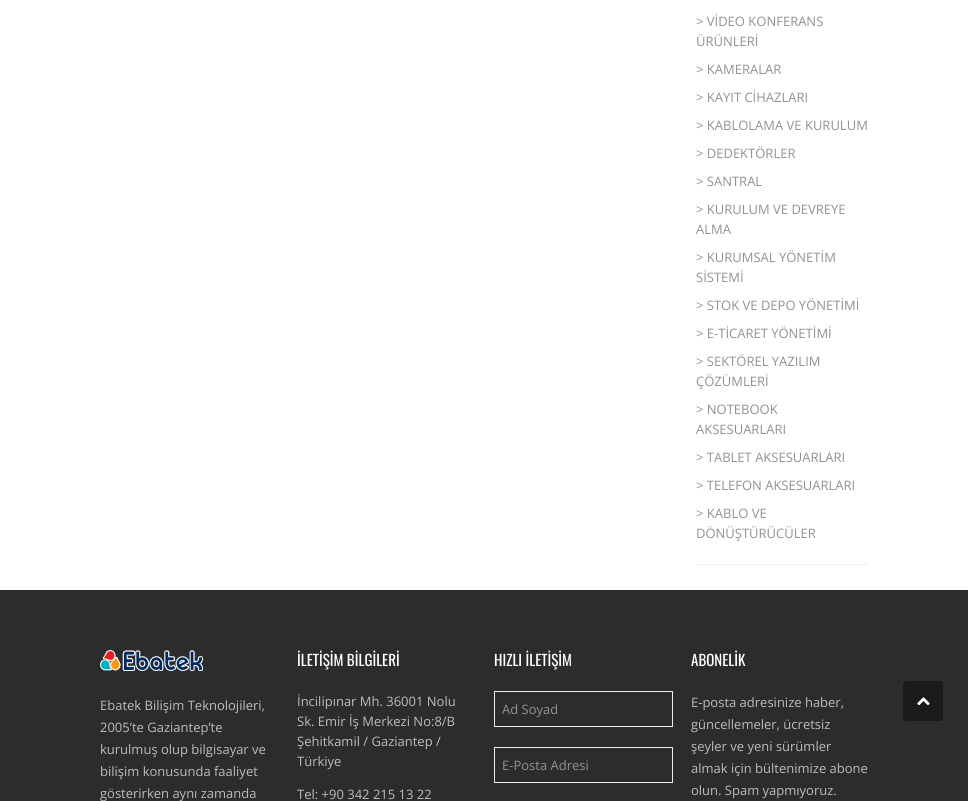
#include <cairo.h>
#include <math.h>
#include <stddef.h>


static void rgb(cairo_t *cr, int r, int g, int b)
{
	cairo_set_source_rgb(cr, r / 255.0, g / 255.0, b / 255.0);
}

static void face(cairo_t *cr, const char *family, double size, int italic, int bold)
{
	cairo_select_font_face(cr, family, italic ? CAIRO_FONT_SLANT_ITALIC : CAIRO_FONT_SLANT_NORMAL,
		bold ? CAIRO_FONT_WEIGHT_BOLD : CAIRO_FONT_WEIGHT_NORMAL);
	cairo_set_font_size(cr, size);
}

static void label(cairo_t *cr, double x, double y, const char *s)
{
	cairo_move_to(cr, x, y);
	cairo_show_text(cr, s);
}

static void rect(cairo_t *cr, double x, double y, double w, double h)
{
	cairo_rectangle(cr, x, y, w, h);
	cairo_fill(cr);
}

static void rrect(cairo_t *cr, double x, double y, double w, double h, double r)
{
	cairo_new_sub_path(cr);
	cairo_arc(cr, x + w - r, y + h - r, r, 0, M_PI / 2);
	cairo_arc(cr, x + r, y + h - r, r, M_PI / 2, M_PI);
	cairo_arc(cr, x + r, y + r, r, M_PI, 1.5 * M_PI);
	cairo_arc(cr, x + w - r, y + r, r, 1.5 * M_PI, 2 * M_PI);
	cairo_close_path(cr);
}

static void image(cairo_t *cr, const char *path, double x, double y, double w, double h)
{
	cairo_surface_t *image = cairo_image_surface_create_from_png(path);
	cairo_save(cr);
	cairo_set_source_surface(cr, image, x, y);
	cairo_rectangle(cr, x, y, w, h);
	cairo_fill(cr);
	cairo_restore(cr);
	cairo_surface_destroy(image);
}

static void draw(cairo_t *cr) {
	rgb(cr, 44, 44, 44);
	cairo_paint(cr);
	rgb(cr, 255, 255, 255);
	rect(cr, 0, 0, 968, 590);
	rgb(cr, 237, 237, 237);
	rect(cr, 696, 564, 172, 1);
	face(cr, "Open Sans", 13, 0, 0);
	rgb(cr, 146, 146, 146);
	label(cr, 696, 26, "> VİDEO KONFERANS");
	label(cr, 696, 46, "ÜRÜNLERİ");
	label(cr, 696, 74, "> KAMERALAR");
	label(cr, 696, 102, "> KAYIT CİHAZLARI");
	label(cr, 696, 130, "> KABLOLAMA VE KURULUM");
	label(cr, 696, 158, "> DEDEKTÖRLER");
	label(cr, 696, 186, "> SANTRAL");
	label(cr, 696, 214, "> KURULUM VE DEVREYE");
	label(cr, 696, 234, "ALMA");
	label(cr, 696, 262, "> KURUMSAL YÖNETİM");
	label(cr, 696, 282, "SİSTEMİ");
	label(cr, 696, 310, "> STOK VE DEPO YÖNETİMİ");
	label(cr, 696, 338, "> E-TİCARET YÖNETİMİ");
	label(cr, 696, 366, "> SEKTÖREL YAZILIM");
	label(cr, 696, 386, "ÇÖZÜMLERİ");
	label(cr, 696, 414, "> NOTEBOOK");
	label(cr, 696, 434, "AKSESUARLARI");
	label(cr, 696, 462, "> TABLET AKSESUARLARI");
	label(cr, 696, 490, "> TELEFON AKSESUARLARI");
	label(cr, 696, 518, "> KABLO VE");
	label(cr, 696, 538, "DÖNÜŞTÜRÜCÜLER");
	rgb(cr, 26, 26, 26);
	rrect(cr, 903, 681, 40, 40, 3);
	cairo_fill(cr);
	image(cr, "image0.png", 917, 697, 13, 8);
	image(cr, "image1.png", 100, 650, 103, 21);
	rgb(cr, 188, 188, 188);
	label(cr, 100, 710, "Ebatek Bilişim Teknolojileri,");
	label(cr, 100, 732, "2005’te Gaziantep’te");
	label(cr, 100, 754, "kurulmuş olup bilgisayar ve");
	label(cr, 100, 776, "bilişim konusunda faaliyet");
	label(cr, 100, 798, "gösterirken aynı zamanda");
	face(cr, "Oswald", 15, 0, 0);
	rgb(cr, 255, 255, 255);
	label(cr, 297, 666, "İLETİŞİM BİLGİLERİ");
	face(cr, "Open Sans", 13, 0, 0);
	rgb(cr, 188, 188, 188);
	label(cr, 297, 706, "İncilipınar Mh. 36001 Nolu");
	label(cr, 297, 726, "Sk. Emir İş Merkezi No:8/B");
	label(cr, 297, 746, "Şehitkamil / Gaziantep /");
	label(cr, 297, 766, "Türkiye");
	label(cr, 297, 799, "Tel: +90 342 215 13 22");
	face(cr, "Oswald", 15, 0, 0);
	rgb(cr, 255, 255, 255);
	label(cr, 494, 666, "HIZLI İLETİŞİM");
	cairo_rectangle(cr, 494.5, 691.5, 178, 35);
	rgb(cr, 237, 237, 237);
	cairo_set_line_width(cr, 1);
	cairo_stroke(cr);
	face(cr, "Open Sans", 13, 0, 0);
	rgb(cr, 146, 146, 146);
	label(cr, 502, 714, "Ad Soyad");
	cairo_rectangle(cr, 494.5, 747.5, 178, 35);
	rgb(cr, 237, 237, 237);
	cairo_stroke(cr);
	rgb(cr, 146, 146, 146);
	label(cr, 502, 770, "E-Posta Adresi");
	face(cr, "Oswald", 15, 0, 0);
	rgb(cr, 255, 255, 255);
	label(cr, 691, 666, "ABONELİK");
	face(cr, "Open Sans", 13, 0, 0);
	rgb(cr, 188, 188, 188);
	label(cr, 691, 707, "E-posta adresinize haber,");
	label(cr, 691, 729, "güncellemeler, ücretsiz");
	label(cr, 691, 751, "şeyler ve yeni sürümler");
	label(cr, 691, 773, "almak için bültenimize abone");
	label(cr, 691, 795, "olun. Spam yapmıyoruz.");
}

int main(void) {
	cairo_surface_t *surface = cairo_image_surface_create(CAIRO_FORMAT_RGB24, 968, 801);
	cairo_t *cr = cairo_create(surface);
	cairo_font_options_t *options = cairo_font_options_create();
	cairo_font_options_set_hint_metrics(options, CAIRO_HINT_METRICS_OFF);
	cairo_font_options_set_hint_style(options, CAIRO_HINT_STYLE_NONE);
	cairo_set_font_options(cr, options);
	cairo_set_miter_limit(cr, 4);
	draw(cr);
	cairo_surface_write_to_png(surface, "render.png");
	cairo_font_options_destroy(options);
	cairo_destroy(cr);
	cairo_surface_destroy(surface);
	return 0;
}
